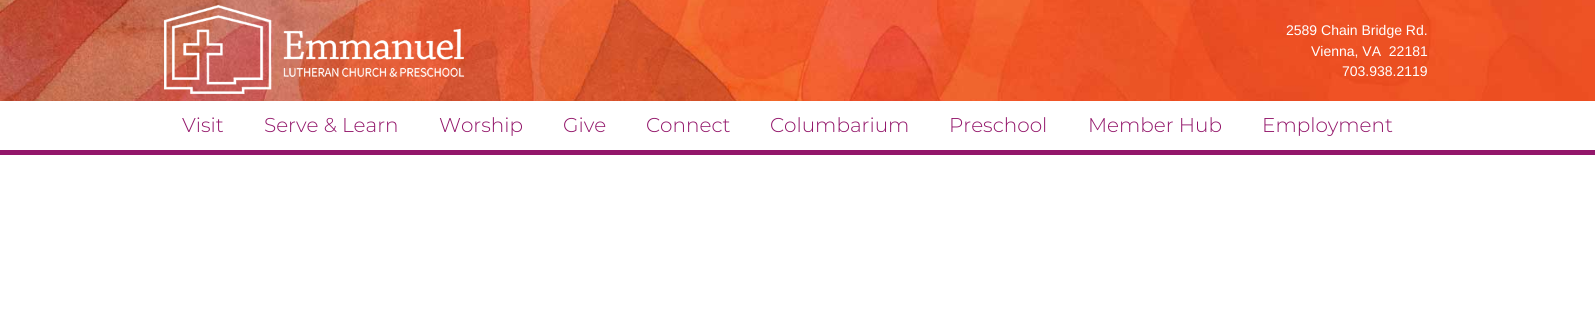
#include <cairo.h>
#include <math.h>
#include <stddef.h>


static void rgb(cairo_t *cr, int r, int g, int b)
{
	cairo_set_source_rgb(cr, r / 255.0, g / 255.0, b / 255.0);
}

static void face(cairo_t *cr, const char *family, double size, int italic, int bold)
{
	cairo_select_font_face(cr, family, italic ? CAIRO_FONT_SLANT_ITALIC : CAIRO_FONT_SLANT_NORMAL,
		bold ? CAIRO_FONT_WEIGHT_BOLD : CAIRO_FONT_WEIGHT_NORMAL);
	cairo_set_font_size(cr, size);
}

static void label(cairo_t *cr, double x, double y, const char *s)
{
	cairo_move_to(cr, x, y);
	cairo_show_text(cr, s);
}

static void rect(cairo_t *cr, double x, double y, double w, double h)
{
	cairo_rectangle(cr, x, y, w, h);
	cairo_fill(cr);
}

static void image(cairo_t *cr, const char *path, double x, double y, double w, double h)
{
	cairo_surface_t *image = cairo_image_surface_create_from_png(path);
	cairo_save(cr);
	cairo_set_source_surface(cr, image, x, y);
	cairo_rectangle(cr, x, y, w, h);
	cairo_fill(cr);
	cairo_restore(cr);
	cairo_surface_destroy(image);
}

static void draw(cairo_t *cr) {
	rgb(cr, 255, 255, 255);
	cairo_paint(cr);
	image(cr, "image0.png", 0, 0, 1595, 101);
	image(cr, "image1.png", 164, 5, 300, 89);
	face(cr, "Liberation Sans", 14, 0, 0);
	rgb(cr, 255, 255, 255);
	label(cr, 1286, 35, "2589 Chain Bridge Rd.");
	label(cr, 1311, 56, "Vienna, VA  22181");
	label(cr, 1342, 76, "703.938.2119");
	rgb(cr, 147, 22, 106);
	rect(cr, 0, 150, 1595, 5);
	face(cr, "Montserrat Light", 20, 0, 0);
	label(cr, 182, 132, "Visit");
	label(cr, 264, 132, "Serve & Learn");
	label(cr, 439, 132, "Worship");
	label(cr, 563, 132, "Give");
	label(cr, 646, 132, "Connect");
	label(cr, 770, 132, "Columbarium");
	label(cr, 949, 132, "Preschool");
	label(cr, 1088, 132, "Member Hub");
	label(cr, 1262, 132, "Employment");
}

int main(void) {
	cairo_surface_t *surface = cairo_image_surface_create(CAIRO_FORMAT_RGB24, 1595, 311);
	cairo_t *cr = cairo_create(surface);
	cairo_font_options_t *options = cairo_font_options_create();
	cairo_font_options_set_hint_metrics(options, CAIRO_HINT_METRICS_OFF);
	cairo_font_options_set_hint_style(options, CAIRO_HINT_STYLE_NONE);
	cairo_set_font_options(cr, options);
	cairo_set_miter_limit(cr, 4);
	draw(cr);
	cairo_surface_write_to_png(surface, "render.png");
	cairo_font_options_destroy(options);
	cairo_destroy(cr);
	cairo_surface_destroy(surface);
	return 0;
}
